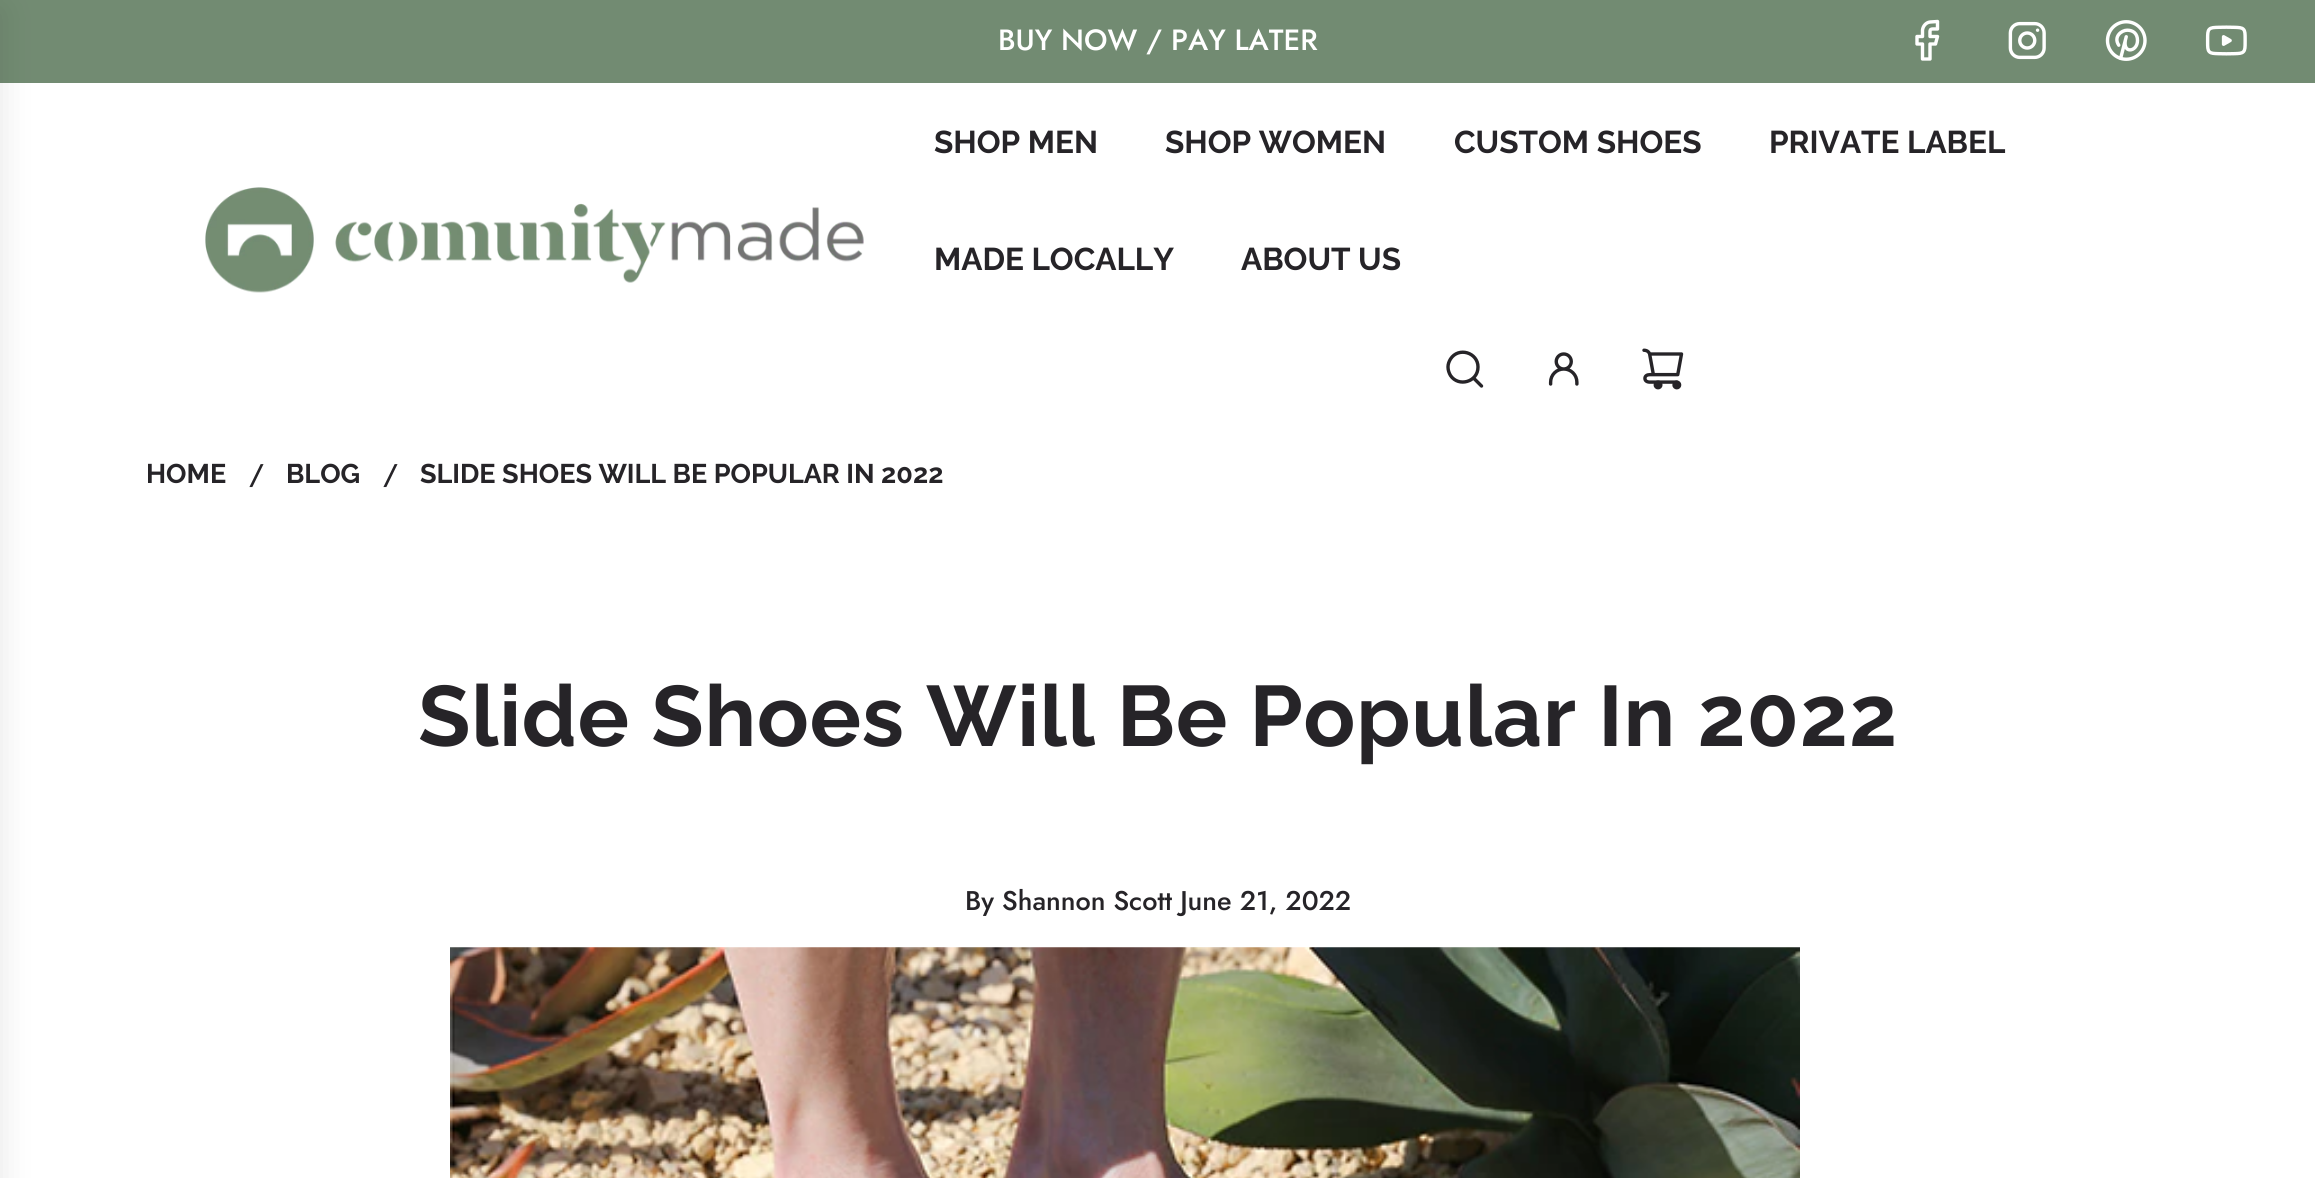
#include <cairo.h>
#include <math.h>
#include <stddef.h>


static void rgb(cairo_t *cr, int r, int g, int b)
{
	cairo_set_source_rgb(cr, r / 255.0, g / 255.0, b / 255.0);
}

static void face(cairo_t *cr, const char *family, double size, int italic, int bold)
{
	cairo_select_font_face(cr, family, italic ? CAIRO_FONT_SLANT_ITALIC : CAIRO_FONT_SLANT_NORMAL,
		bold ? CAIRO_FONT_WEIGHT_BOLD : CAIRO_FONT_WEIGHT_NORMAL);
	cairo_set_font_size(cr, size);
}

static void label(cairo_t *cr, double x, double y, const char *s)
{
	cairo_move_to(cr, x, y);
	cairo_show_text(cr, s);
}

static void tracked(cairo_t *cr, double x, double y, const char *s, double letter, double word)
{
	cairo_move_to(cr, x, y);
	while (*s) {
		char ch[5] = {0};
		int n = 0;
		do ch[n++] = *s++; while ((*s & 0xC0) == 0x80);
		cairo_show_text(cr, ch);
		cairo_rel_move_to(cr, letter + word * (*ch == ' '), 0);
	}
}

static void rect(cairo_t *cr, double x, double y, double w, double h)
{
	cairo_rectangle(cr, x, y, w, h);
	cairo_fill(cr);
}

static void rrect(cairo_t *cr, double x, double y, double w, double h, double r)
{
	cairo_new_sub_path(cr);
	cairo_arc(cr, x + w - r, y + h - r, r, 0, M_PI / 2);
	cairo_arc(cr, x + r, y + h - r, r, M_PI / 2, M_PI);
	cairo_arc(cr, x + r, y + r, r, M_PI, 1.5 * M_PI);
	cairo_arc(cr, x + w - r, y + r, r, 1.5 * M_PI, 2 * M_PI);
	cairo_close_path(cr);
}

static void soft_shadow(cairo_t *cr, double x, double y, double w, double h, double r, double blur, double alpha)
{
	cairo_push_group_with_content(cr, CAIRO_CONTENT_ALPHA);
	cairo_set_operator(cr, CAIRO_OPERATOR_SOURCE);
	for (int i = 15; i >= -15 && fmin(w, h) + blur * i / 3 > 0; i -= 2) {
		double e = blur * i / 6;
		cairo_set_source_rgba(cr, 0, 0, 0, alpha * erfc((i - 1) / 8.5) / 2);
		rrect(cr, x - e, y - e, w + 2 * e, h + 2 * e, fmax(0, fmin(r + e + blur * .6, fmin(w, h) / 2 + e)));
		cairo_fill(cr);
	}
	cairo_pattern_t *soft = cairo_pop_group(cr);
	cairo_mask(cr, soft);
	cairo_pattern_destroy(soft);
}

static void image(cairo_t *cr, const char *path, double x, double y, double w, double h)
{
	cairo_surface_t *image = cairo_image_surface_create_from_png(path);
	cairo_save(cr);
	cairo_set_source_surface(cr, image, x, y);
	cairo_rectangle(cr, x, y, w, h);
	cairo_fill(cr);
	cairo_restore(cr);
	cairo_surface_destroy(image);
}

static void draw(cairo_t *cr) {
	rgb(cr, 255, 255, 255);
	cairo_paint(cr);
	rgb(cr, 114, 139, 114);
	rect(cr, 0, 0, 2315, 83);
	face(cr, "Jost Medium", 29.25, 0, 0);
	rgb(cr, 255, 255, 255);
	label(cr, 998, 50, "BUY NOW / PAY LATER");
	cairo_new_path(cr);
	cairo_move_to(cr, 1937.5, 21.5);
	cairo_line_to(cr, 1930, 22);
	cairo_curve_to(cr, 1926, 22.5, 1923, 26, 1922.5, 30);
	cairo_line_to(cr, 1922.5, 36.5);
	cairo_line_to(cr, 1917, 36.5);
	cairo_line_to(cr, 1917, 44);
	cairo_line_to(cr, 1922.5, 44);
	cairo_line_to(cr, 1922.5, 59);
	cairo_line_to(cr, 1930, 59);
	cairo_line_to(cr, 1930, 44);
	cairo_line_to(cr, 1935.5, 44);
	cairo_line_to(cr, 1937.5, 36.5);
	cairo_line_to(cr, 1930, 36.5);
	cairo_curve_to(cr, 1930, 28, 1929, 29, 1937.5, 29);
	cairo_close_path(cr);
	cairo_set_line_width(cr, 3.4);
	cairo_set_line_cap(cr, CAIRO_LINE_CAP_ROUND);
	cairo_set_line_join(cr, CAIRO_LINE_JOIN_ROUND);
	cairo_stroke(cr);
	image(cr, "image0.png", 2008, 21, 38, 39);
	image(cr, "image1.png", 2105, 20, 42, 41);
	image(cr, "image2.png", 2205, 25, 42, 31);
	rgb(cr, 0, 0, 0);
	soft_shadow(cr, -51, 11, 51, 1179, 0, 17, 0.1);
	image(cr, "image3.png", 205, 187, 659, 106);
	face(cr, "Raleway", 31.5, 0, 1);
	rgb(cr, 38, 36, 40);
	label(cr, 934, 153, "SHOP MEN");
	label(cr, 1165, 153, "SHOP WOMEN");
	label(cr, 1454, 153, "CUSTOM SHOES");
	label(cr, 1769, 153, "PRIVATE LABEL");
	label(cr, 934, 270, "MADE LOCALLY");
	label(cr, 1241, 270, "ABOUT US");
	cairo_new_path(cr);
	cairo_move_to(cr, 1474, 378.5);
	cairo_line_to(cr, 1481.5, 386);
	cairo_move_to(cr, 1448, 367);
	cairo_curve_to(cr, 1448, 370, 1449, 373, 1450.5, 375.5);
	cairo_curve_to(cr, 1458.5, 387.5, 1478, 382, 1478, 367);
	cairo_curve_to(cr, 1478, 352.5, 1458.5, 346.5, 1450.5, 359);
	cairo_curve_to(cr, 1449, 361.5, 1448, 364, 1448, 367);
	cairo_close_path(cr);
	cairo_stroke(cr);
	image(cr, "image4.png", 1548, 352, 31, 34);
	image(cr, "image5.png", 1642, 348, 42, 42);
	face(cr, "Raleway", 27, 0, 1);
	label(cr, 146, 483, "HOME");
	face(cr, "Jost Medium", 27, 0, 0);
	label(cr, 249, 483, "/");
	face(cr, "Raleway", 27, 0, 1);
	label(cr, 286, 483, "BLOG");
	face(cr, "Jost Medium", 27, 0, 0);
	label(cr, 383, 483, "/");
	face(cr, "Raleway", 27, 0, 1);
	label(cr, 420, 483, "SLIDE SHOES WILL BE POPULAR IN 2022");
	face(cr, "Raleway", 85.5, 0, 1);
	tracked(cr, 418, 746, "Slide Shoes Will Be Popular In 2022", 0.85, 0);
	face(cr, "Jost Medium", 27, 0, 0);
	label(cr, 965, 910, "By Shannon Scott June 21, 2022");
	image(cr, "image6.png", 450, 947, 1350, 231);
}

int main(void) {
	cairo_surface_t *surface = cairo_image_surface_create(CAIRO_FORMAT_RGB24, 2315, 1178);
	cairo_t *cr = cairo_create(surface);
	cairo_font_options_t *options = cairo_font_options_create();
	cairo_font_options_set_hint_metrics(options, CAIRO_HINT_METRICS_OFF);
	cairo_font_options_set_hint_style(options, CAIRO_HINT_STYLE_NONE);
	cairo_set_font_options(cr, options);
	cairo_set_miter_limit(cr, 4);
	draw(cr);
	cairo_surface_write_to_png(surface, "render.png");
	cairo_font_options_destroy(options);
	cairo_destroy(cr);
	cairo_surface_destroy(surface);
	return 0;
}
